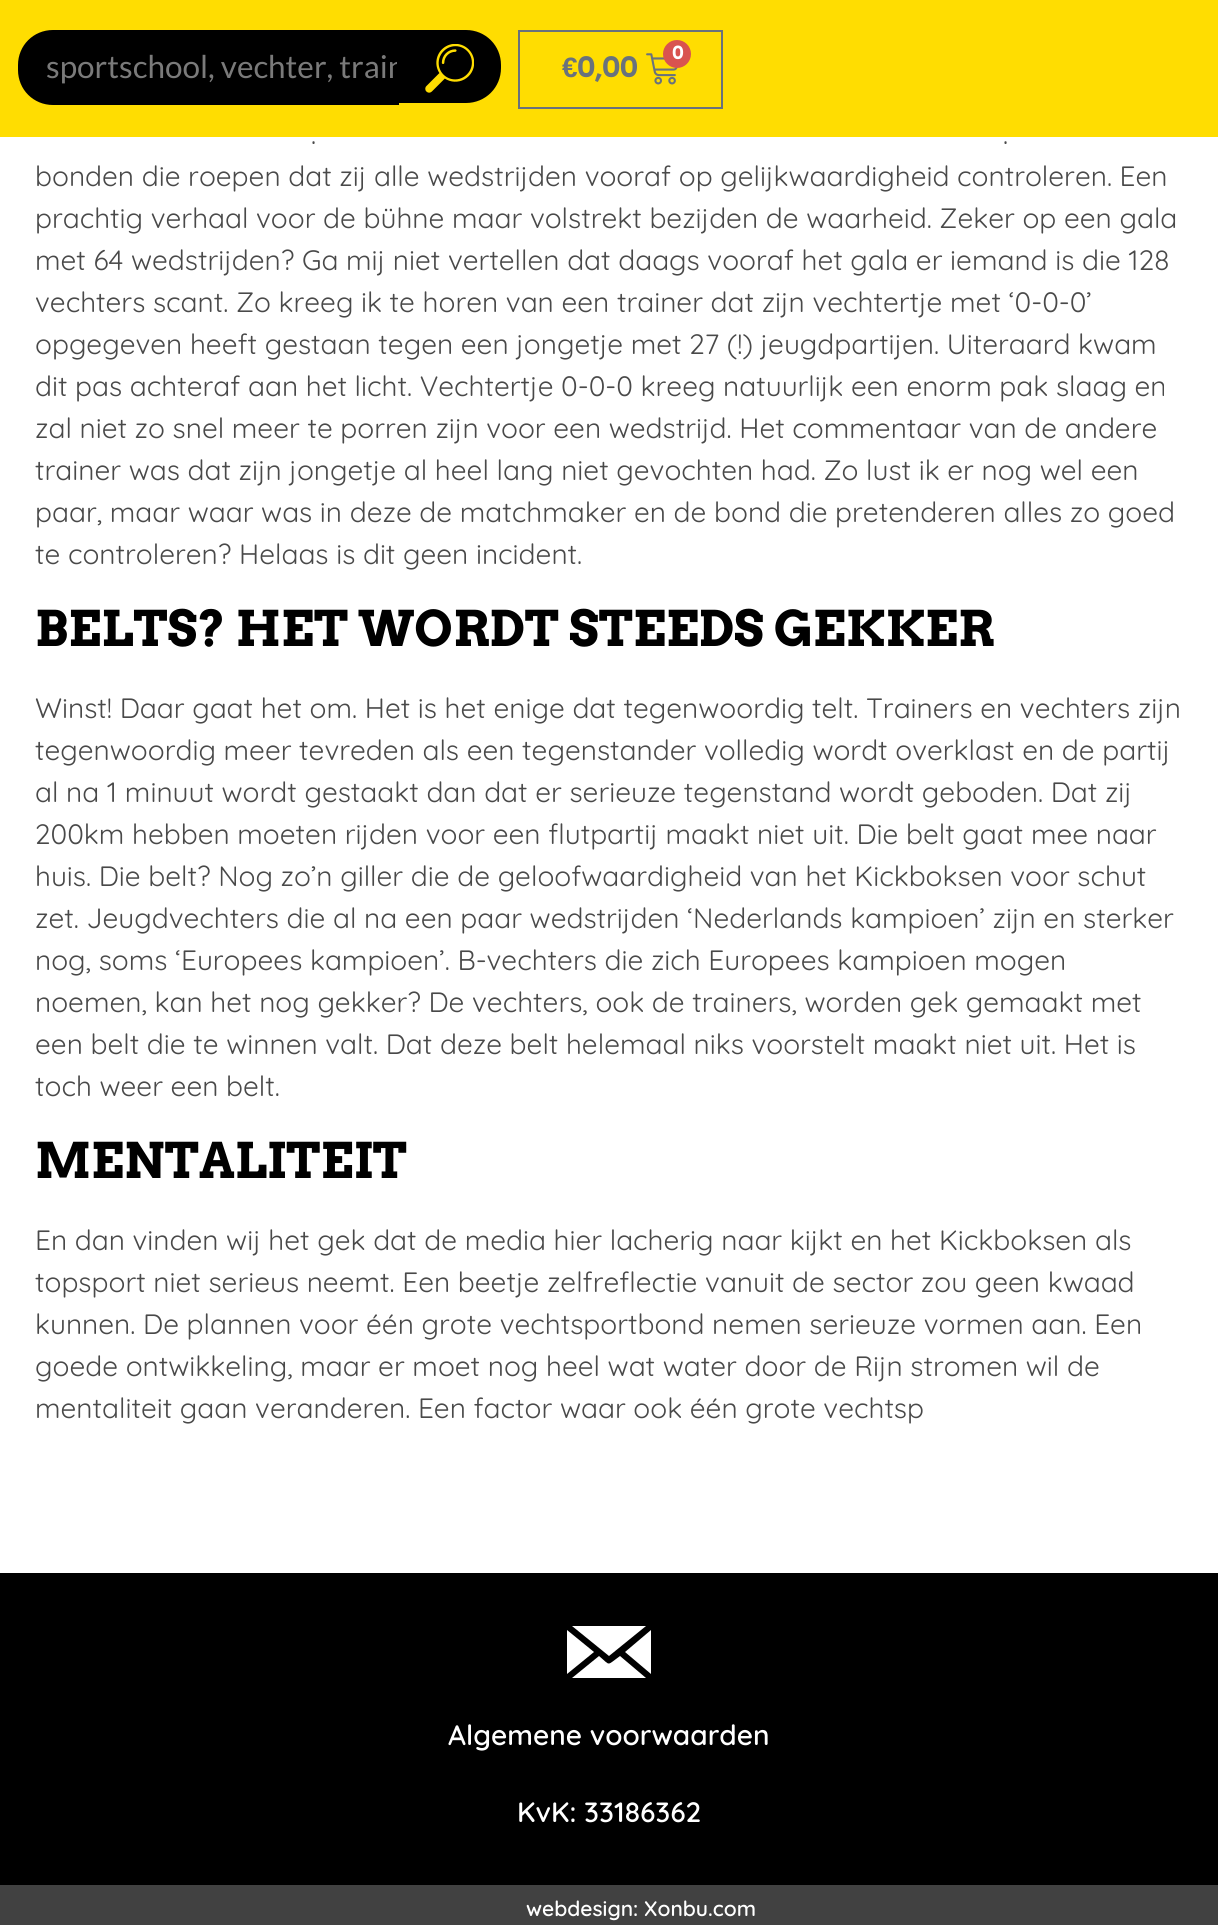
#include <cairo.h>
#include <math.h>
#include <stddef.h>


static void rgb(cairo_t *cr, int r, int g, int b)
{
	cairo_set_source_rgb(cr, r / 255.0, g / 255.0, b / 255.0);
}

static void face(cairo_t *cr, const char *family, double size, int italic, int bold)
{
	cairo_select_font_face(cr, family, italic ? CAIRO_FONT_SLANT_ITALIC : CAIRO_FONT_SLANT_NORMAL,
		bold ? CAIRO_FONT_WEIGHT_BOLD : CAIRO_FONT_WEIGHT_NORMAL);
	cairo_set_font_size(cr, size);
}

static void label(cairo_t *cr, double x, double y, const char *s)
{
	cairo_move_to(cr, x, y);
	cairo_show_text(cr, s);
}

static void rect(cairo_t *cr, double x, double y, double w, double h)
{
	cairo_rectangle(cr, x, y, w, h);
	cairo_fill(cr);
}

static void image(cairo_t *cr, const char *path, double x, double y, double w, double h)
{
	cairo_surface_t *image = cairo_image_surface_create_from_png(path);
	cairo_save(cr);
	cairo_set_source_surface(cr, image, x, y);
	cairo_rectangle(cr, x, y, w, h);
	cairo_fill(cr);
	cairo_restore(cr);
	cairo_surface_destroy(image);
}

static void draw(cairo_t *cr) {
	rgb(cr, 255, 255, 255);
	cairo_paint(cr);
	rgb(cr, 255, 221, 1);
	rect(cr, 0, 0, 1218, 137);
	rgb(cr, 0, 0, 0);
	cairo_new_path(cr);
	cairo_move_to(cr, 53, 31);
	cairo_line_to(cr, 398, 31);
	cairo_line_to(cr, 398, 104);
	cairo_line_to(cr, 53, 104);
	cairo_curve_to(cr, 34, 104, 19, 89, 19, 70);
	cairo_line_to(cr, 19, 65);
	cairo_curve_to(cr, 19, 46, 34, 31, 53, 31);
	cairo_close_path(cr);
	cairo_fill_preserve(cr);
	cairo_stroke(cr);
	cairo_save(cr);
	cairo_new_path(cr);
	cairo_move_to(cr, 52, 32);
	cairo_line_to(cr, 397, 32);
	cairo_line_to(cr, 397, 103);
	cairo_line_to(cr, 52, 103);
	cairo_curve_to(cr, 34, 103, 19, 88, 19, 70);
	cairo_line_to(cr, 19, 65);
	cairo_curve_to(cr, 19, 47, 34, 32, 52, 32);
	cairo_close_path(cr);
	cairo_clip(cr);
	face(cr, "Lato", 31.5, 0, 0);
	rgb(cr, 122, 122, 122);
	label(cr, 46, 78, "sportschool, vechter, train");
	cairo_restore(cr);
	cairo_new_path(cr);
	cairo_move_to(cr, 399, 30);
	cairo_line_to(cr, 466, 30);
	cairo_curve_to(cr, 485.5, 30, 501, 45.5, 501, 65);
	cairo_line_to(cr, 501, 68);
	cairo_curve_to(cr, 501, 87.5, 485.5, 103, 466, 103);
	cairo_line_to(cr, 399, 103);
	cairo_close_path(cr);
	cairo_fill(cr);
	image(cr, "image0.png", 425, 44, 49, 49);
	cairo_rectangle(cr, 519, 31, 203, 77);
	rgb(cr, 105, 114, 125);
	cairo_stroke(cr);
	image(cr, "image1.png", 646, 53, 32, 32);
	rgb(cr, 217, 83, 79);
	cairo_arc(cr, 677, 54, 14, 0, 2 * M_PI);
	cairo_fill(cr);
	face(cr, "Arvo", 18, 0, 1);
	rgb(cr, 255, 255, 255);
	label(cr, 672, 59, "0");
	face(cr, "Liberation Sans", 28, 0, 1);
	rgb(cr, 105, 114, 125);
	label(cr, 562, 77, "€");
	face(cr, "Arvo", 28, 0, 1);
	label(cr, 577, 77, "0,00");
	face(cr, "Quicksand", 28, 0, 0);
	rgb(cr, 73, 73, 73);
	label(cr, 311, 144, ".");
	label(cr, 1003, 144, ".");
	label(cr, 35, 186, "bonden die roepen dat zij alle wedstrijden vooraf op gelijkwaardigheid controleren. Een");
	label(cr, 35, 228, "prachtig verhaal voor de bühne maar volstrekt bezijden de waarheid. Zeker op een gala");
	label(cr, 35, 270, "met 64 wedstrijden? Ga mij niet vertellen dat daags vooraf het gala er iemand is die 128");
	label(cr, 35, 312, "vechters scant. Zo kreeg ik te horen van een trainer dat zijn vechtertje met ‘0-0-0’");
	label(cr, 35, 354, "opgegeven heeft gestaan tegen een jongetje met 27 (!) jeugdpartijen. Uiteraard kwam");
	label(cr, 35, 396, "dit pas achteraf aan het licht. Vechtertje 0-0-0 kreeg natuurlijk een enorm pak slaag en");
	label(cr, 35, 438, "zal niet zo snel meer te porren zijn voor een wedstrijd. Het commentaar van de andere");
	label(cr, 35, 480, "trainer was dat zijn jongetje al heel lang niet gevochten had. Zo lust ik er nog wel een");
	label(cr, 35, 522, "paar, maar waar was in deze de matchmaker en de bond die pretenderen alles zo goed");
	label(cr, 35, 564, "te controleren? Helaas is dit geen incident.");
	face(cr, "Arvo", 49, 0, 1);
	rgb(cr, 0, 0, 0);
	label(cr, 35, 646, "BELTS? HET WORDT STEEDS GEKKER");
	face(cr, "Quicksand", 28, 0, 0);
	rgb(cr, 73, 73, 73);
	label(cr, 35, 718, "Winst! Daar gaat het om. Het is het enige dat tegenwoordig telt. Trainers en vechters zijn");
	label(cr, 35, 760, "tegenwoordig meer tevreden als een tegenstander volledig wordt overklast en de partij");
	label(cr, 35, 802, "al na 1 minuut wordt gestaakt dan dat er serieuze tegenstand wordt geboden. Dat zij");
	label(cr, 35, 844, "200km hebben moeten rijden voor een flutpartij maakt niet uit. Die belt gaat mee naar");
	label(cr, 35, 886, "huis. Die belt? Nog zo’n giller die de geloofwaardigheid van het Kickboksen voor schut");
	label(cr, 35, 928, "zet. Jeugdvechters die al na een paar wedstrijden ‘Nederlands kampioen’ zijn en sterker");
	label(cr, 35, 970, "nog, soms ‘Europees kampioen’. B-vechters die zich Europees kampioen mogen");
	label(cr, 35, 1012, "noemen, kan het nog gekker? De vechters, ook de trainers, worden gek gemaakt met");
	label(cr, 35, 1054, "een belt die te winnen valt. Dat deze belt helemaal niks voorstelt maakt niet uit. Het is");
	label(cr, 35, 1096, "toch weer een belt.");
	face(cr, "Arvo", 49, 0, 1);
	rgb(cr, 0, 0, 0);
	label(cr, 35, 1178, "MENTALITEIT");
	face(cr, "Quicksand", 28, 0, 0);
	rgb(cr, 73, 73, 73);
	label(cr, 35, 1250, "En dan vinden wij het gek dat de media hier lacherig naar kijkt en het Kickboksen als");
	label(cr, 35, 1292, "topsport niet serieus neemt. Een beetje zelfreflectie vanuit de sector zou geen kwaad");
	label(cr, 35, 1334, "kunnen. De plannen voor één grote vechtsportbond nemen serieuze vormen aan. Een");
	label(cr, 35, 1376, "goede ontwikkeling, maar er moet nog heel wat water door de Rijn stromen wil de");
	label(cr, 35, 1418, "mentaliteit gaan veranderen. Een factor waar ook één grote vechtsp");
	rgb(cr, 0, 0, 0);
	rect(cr, 0, 1573, 1218, 312);
	rgb(cr, 255, 255, 255);
	cairo_set_fill_rule(cr, CAIRO_FILL_RULE_EVEN_ODD);
	cairo_new_path(cr);
	cairo_move_to(cr, 625, 1652);
	cairo_line_to(cr, 651, 1630);
	cairo_line_to(cr, 651, 1674);
	cairo_close_path(cr);
	cairo_fill(cr);
	cairo_new_path(cr);
	cairo_move_to(cr, 572, 1626);
	cairo_line_to(cr, 646, 1626);
	cairo_line_to(cr, 609, 1656);
	cairo_close_path(cr);
	cairo_fill(cr);
	cairo_new_path(cr);
	cairo_move_to(cr, 572, 1678);
	cairo_line_to(cr, 599, 1656);
	cairo_curve_to(cr, 611, 1666, 606, 1666, 620, 1656);
	cairo_line_to(cr, 646, 1678);
	cairo_close_path(cr);
	cairo_fill(cr);
	cairo_new_path(cr);
	cairo_move_to(cr, 567, 1674);
	cairo_line_to(cr, 567, 1630);
	cairo_line_to(cr, 594, 1652);
	cairo_close_path(cr);
	cairo_fill(cr);
	face(cr, "Quicksand SemiBold", 28, 0, 0);
	label(cr, 448, 1745, "Algemene voorwaarden");
	label(cr, 517, 1822, "KvK: 33186362");
	rgb(cr, 65, 65, 65);
	rect(cr, 0, 1885, 1218, 40);
	face(cr, "Quicksand SemiBold", 21, 0, 0);
	rgb(cr, 255, 255, 255);
	label(cr, 526, 1916, "webdesign: Xonbu.com");
}

int main(void) {
	cairo_surface_t *surface = cairo_image_surface_create(CAIRO_FORMAT_RGB24, 1218, 1925);
	cairo_t *cr = cairo_create(surface);
	cairo_font_options_t *options = cairo_font_options_create();
	cairo_font_options_set_hint_metrics(options, CAIRO_HINT_METRICS_OFF);
	cairo_font_options_set_hint_style(options, CAIRO_HINT_STYLE_NONE);
	cairo_set_font_options(cr, options);
	cairo_set_miter_limit(cr, 4);
	draw(cr);
	cairo_surface_write_to_png(surface, "render.png");
	cairo_font_options_destroy(options);
	cairo_destroy(cr);
	cairo_surface_destroy(surface);
	return 0;
}
